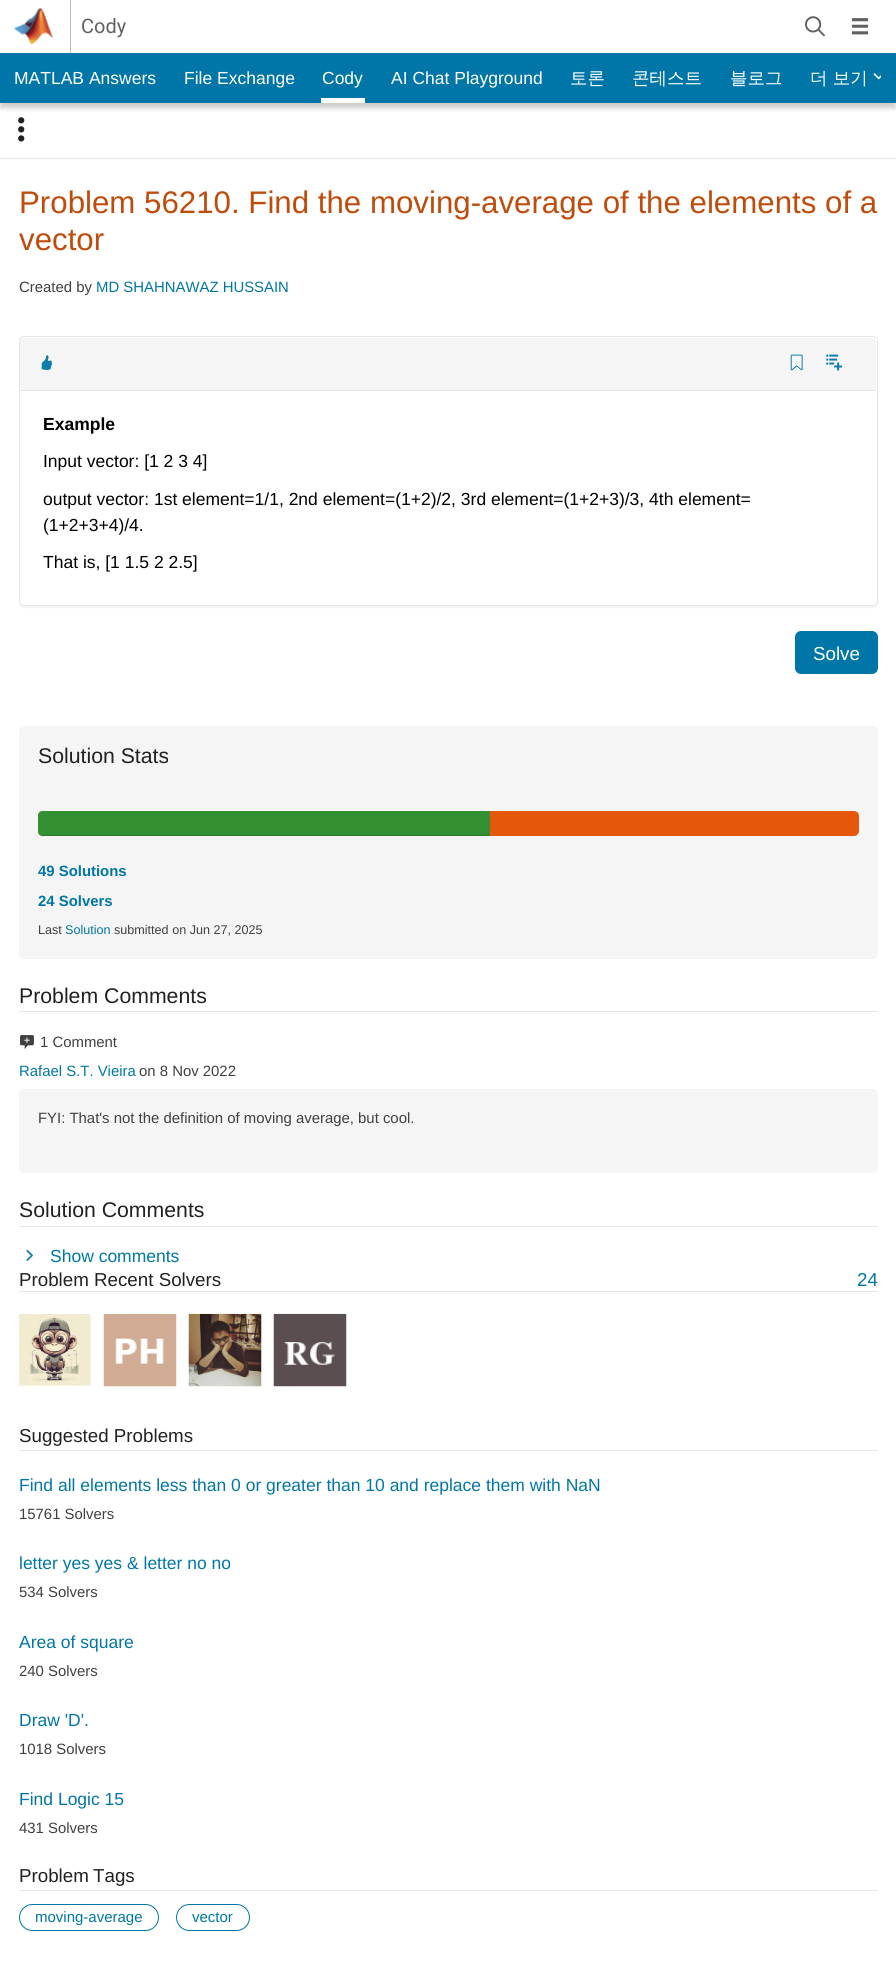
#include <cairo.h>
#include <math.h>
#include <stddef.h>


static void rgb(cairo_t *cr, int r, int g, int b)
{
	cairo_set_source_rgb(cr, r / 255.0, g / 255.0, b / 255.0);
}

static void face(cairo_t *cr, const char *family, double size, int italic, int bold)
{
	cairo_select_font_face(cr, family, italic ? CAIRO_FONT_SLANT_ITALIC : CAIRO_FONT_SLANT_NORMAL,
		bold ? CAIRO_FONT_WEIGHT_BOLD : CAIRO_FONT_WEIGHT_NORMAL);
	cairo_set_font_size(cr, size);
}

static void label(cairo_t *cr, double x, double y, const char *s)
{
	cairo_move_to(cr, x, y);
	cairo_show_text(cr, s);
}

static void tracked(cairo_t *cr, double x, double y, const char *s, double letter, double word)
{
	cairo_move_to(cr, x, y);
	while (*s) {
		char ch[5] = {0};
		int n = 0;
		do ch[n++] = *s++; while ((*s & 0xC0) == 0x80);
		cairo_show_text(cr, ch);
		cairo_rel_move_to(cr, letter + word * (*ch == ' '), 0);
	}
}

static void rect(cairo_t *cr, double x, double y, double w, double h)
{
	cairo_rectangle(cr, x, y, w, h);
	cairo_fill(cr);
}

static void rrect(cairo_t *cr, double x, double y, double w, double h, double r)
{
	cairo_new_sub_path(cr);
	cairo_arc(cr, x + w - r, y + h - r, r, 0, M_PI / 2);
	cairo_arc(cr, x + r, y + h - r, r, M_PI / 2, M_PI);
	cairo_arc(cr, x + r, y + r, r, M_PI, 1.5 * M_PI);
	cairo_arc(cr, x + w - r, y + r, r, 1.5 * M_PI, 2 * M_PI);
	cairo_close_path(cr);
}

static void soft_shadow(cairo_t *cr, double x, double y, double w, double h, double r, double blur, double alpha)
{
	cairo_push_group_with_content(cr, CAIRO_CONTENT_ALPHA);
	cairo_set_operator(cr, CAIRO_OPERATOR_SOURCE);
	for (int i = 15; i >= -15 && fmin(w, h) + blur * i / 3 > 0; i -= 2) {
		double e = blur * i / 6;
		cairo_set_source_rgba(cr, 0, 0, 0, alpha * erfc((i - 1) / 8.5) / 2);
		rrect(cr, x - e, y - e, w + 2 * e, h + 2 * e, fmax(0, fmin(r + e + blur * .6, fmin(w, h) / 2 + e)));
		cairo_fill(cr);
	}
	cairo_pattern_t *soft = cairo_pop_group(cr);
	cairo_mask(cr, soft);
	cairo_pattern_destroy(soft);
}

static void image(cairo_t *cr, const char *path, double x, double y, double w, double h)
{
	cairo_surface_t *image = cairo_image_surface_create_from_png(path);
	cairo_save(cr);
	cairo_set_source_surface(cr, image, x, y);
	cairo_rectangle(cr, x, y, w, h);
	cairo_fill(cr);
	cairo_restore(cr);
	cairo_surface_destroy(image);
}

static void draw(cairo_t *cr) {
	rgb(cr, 255, 255, 255);
	cairo_paint(cr);
	rgb(cr, 191, 191, 191);
	rect(cr, 70, 0, 1, 53);
	image(cr, "image0.png", 13, 8, 41, 37);
	face(cr, "Roboto", 20, 0, 0);
	rgb(cr, 97, 97, 97);
	label(cr, 81, 33, "Cody");
	image(cr, "image1.png", 805, 16, 20, 21);
	image(cr, "image2.png", 851, 18, 18, 17);
	rgb(cr, 0, 0, 0);
	soft_shadow(cr, 0, 58, 896, 50, 0, 2.5, 0.2);
	rgb(cr, 0, 118, 168);
	rect(cr, 0, 53, 896, 50);
	face(cr, "Liberation Sans", 17.5, 0, 0);
	rgb(cr, 255, 255, 255);
	label(cr, 14, 84, "MATLAB Answers");
	label(cr, 184, 84, "File Exchange");
	rect(cr, 321, 98, 44, 5);
	label(cr, 322, 84, "Cody");
	label(cr, 391, 84, "AI Chat Playground");
	face(cr, "WenQuanYi Zen Hei Medium", 17.5, 0, 0);
	label(cr, 570, 84, "토론");
	label(cr, 632, 84, "콘테스트");
	label(cr, 730, 84, "블로그");
	label(cr, 810, 84, "더 보기");
	image(cr, "image3.png", 873, 73, 8, 7);
	rgb(cr, 230, 230, 230);
	rect(cr, 0, 158, 896, 1);
	image(cr, "image4.png", 18, 117, 7, 25);
	face(cr, "Liberation Sans", 31.25, 0, 0);
	rgb(cr, 192, 76, 11);
	label(cr, 19, 213, "Problem 56210. Find the moving-average of the elements of a");
	label(cr, 19, 250, "vector");
	face(cr, "Liberation Sans", 14.9, 0, 0);
	rgb(cr, 64, 64, 64);
	label(cr, 19, 292, "Created by");
	rgb(cr, 0, 118, 168);
	label(cr, 96, 292, "MD SHAHNAWAZ HUSSAIN");
	rgb(cr, 0, 0, 0);
	soft_shadow(cr, 19, 338, 859, 270, 5, 0.5, 0.05);
	rgb(cr, 255, 255, 255);
	rrect(cr, 19.5, 336.5, 858, 269, 4.5);
	cairo_fill_preserve(cr);
	rgb(cr, 230, 230, 230);
	cairo_set_line_width(cr, 1);
	cairo_stroke(cr);
	rgb(cr, 245, 245, 245);
	cairo_new_path(cr);
	cairo_move_to(cr, 25, 338);
	cairo_line_to(cr, 871, 338);
	cairo_curve_to(cr, 874, 338, 876, 340, 876, 343);
	cairo_line_to(cr, 876, 391);
	cairo_line_to(cr, 20, 391);
	cairo_line_to(cr, 20, 343);
	cairo_curve_to(cr, 20, 340, 22, 338, 25, 338);
	cairo_close_path(cr);
	cairo_fill(cr);
	rgb(cr, 230, 230, 230);
	rect(cr, 20, 390, 856, 1);
	image(cr, "image5.png", 41, 355, 11, 16);
	image(cr, "image6.png", 790, 354, 13, 17);
	image(cr, "image7.png", 826, 354, 17, 17);
	face(cr, "Liberation Sans", 17.5, 0, 1);
	rgb(cr, 0, 0, 0);
	label(cr, 43, 430, "Example");
	face(cr, "Liberation Sans", 17.5, 0, 0);
	label(cr, 43, 467, "Input vector: [1 2 3 4]");
	label(cr, 43, 505, "output vector: 1st element=1/1, 2nd element=(1+2)/2, 3rd element=(1+2+3)/3, 4th element=");
	label(cr, 43, 531, "(1+2+3+4)/4.");
	label(cr, 43, 568, "That is, [1 1.5 2 2.5]");
	rgb(cr, 0, 118, 168);
	rrect(cr, 795, 631, 83, 43, 6);
	cairo_fill(cr);
	face(cr, "Liberation Sans", 18.75, 0, 0);
	rgb(cr, 255, 255, 255);
	label(cr, 813, 660, "Solve");
	rgb(cr, 245, 245, 245);
	rrect(cr, 19, 726, 859, 233, 5);
	cairo_fill(cr);
	face(cr, "Liberation Sans", 21.25, 0, 0);
	rgb(cr, 33, 33, 33);
	label(cr, 38, 763, "Solution Stats");
	rgb(cr, 229, 87, 10);
	rrect(cr, 38, 811, 821, 25, 5);
	cairo_fill(cr);
	rgb(cr, 51, 144, 51);
	cairo_new_path(cr);
	cairo_move_to(cr, 43, 811);
	cairo_line_to(cr, 490, 811);
	cairo_line_to(cr, 490, 836);
	cairo_line_to(cr, 43, 836);
	cairo_curve_to(cr, 40, 836, 38, 834, 38, 831);
	cairo_line_to(cr, 38, 816);
	cairo_curve_to(cr, 38, 813, 40, 811, 43, 811);
	cairo_close_path(cr);
	cairo_fill(cr);
	cairo_save(cr);
	rrect(cr, 38, 811, 821, 25, 5);
	cairo_clip(cr);
	cairo_set_source_rgba(cr, 0, 0, 0, 0.15);
	rect(cr, 38, 835, 452, 1);
	cairo_restore(cr);
	face(cr, "Liberation Sans", 14.9, 0, 1);
	rgb(cr, 0, 118, 168);
	label(cr, 38, 876, "49 Solutions");
	label(cr, 38, 906, "24 Solvers");
	face(cr, "Liberation Sans", 12.6, 0, 0);
	rgb(cr, 64, 64, 64);
	label(cr, 38, 934, "Last");
	rgb(cr, 0, 118, 168);
	label(cr, 65, 934, "Solution");
	rgb(cr, 64, 64, 64);
	label(cr, 114, 934, "submitted on Jun 27, 2025");
	rgb(cr, 230, 230, 230);
	rect(cr, 19, 1011, 859, 1);
	face(cr, "Liberation Sans", 21.25, 0, 0);
	rgb(cr, 33, 33, 33);
	label(cr, 19, 1003, "Problem Comments");
	image(cr, "image8.png", 20, 1035, 14, 14);
	face(cr, "Liberation Sans", 14.9, 0, 0);
	rgb(cr, 64, 64, 64);
	label(cr, 40, 1047, "1 Comment");
	rgb(cr, 0, 118, 168);
	label(cr, 19, 1076, "Rafael S.T. Vieira");
	rgb(cr, 64, 64, 64);
	label(cr, 139, 1076, "on 8 Nov 2022");
	rgb(cr, 245, 245, 245);
	rrect(cr, 19, 1089, 859, 84, 5);
	cairo_fill(cr);
	rgb(cr, 64, 64, 64);
	label(cr, 38, 1123, "FYI: That's not the definition of moving average, but cool.");
	rgb(cr, 230, 230, 230);
	rect(cr, 19, 1226, 859, 1);
	face(cr, "Liberation Sans", 21.25, 0, 0);
	rgb(cr, 33, 33, 33);
	label(cr, 19, 1217, "Solution Comments");
	image(cr, "image9.png", 26, 1249, 7, 12);
	face(cr, "Liberation Sans", 17.5, 0, 0);
	rgb(cr, 0, 118, 168);
	label(cr, 50, 1262, "Show comments");
	rgb(cr, 230, 230, 230);
	rect(cr, 19, 1291, 859, 1);
	face(cr, "Liberation Sans", 18.75, 0, 0);
	rgb(cr, 33, 33, 33);
	label(cr, 19, 1286, "Problem Recent Solvers");
	rgb(cr, 0, 118, 168);
	label(cr, 857, 1286, "24");
	image(cr, "image10.png", 19, 1314, 72, 73);
	image(cr, "image11.png", 103, 1313, 74, 74);
	image(cr, "image12.png", 188, 1313, 74, 74);
	image(cr, "image13.png", 273, 1313, 74, 74);
	rgb(cr, 230, 230, 230);
	rect(cr, 19, 1450, 859, 1);
	rgb(cr, 33, 33, 33);
	label(cr, 19, 1442, "Suggested Problems");
	face(cr, "Liberation Sans", 17.5, 0, 0);
	rgb(cr, 0, 118, 168);
	label(cr, 19, 1491, "Find all elements less than 0 or greater than 10 and replace them with NaN");
	face(cr, "Liberation Sans", 14.9, 0, 0);
	rgb(cr, 64, 64, 64);
	label(cr, 19, 1519, "15761 Solvers");
	face(cr, "Liberation Sans", 17.5, 0, 0);
	rgb(cr, 0, 118, 168);
	label(cr, 19, 1569, "letter yes yes & letter no no");
	face(cr, "Liberation Sans", 14.9, 0, 0);
	rgb(cr, 64, 64, 64);
	label(cr, 19, 1597, "534 Solvers");
	face(cr, "Liberation Sans", 17.5, 0, 0);
	rgb(cr, 0, 118, 168);
	label(cr, 19, 1648, "Area of square");
	face(cr, "Liberation Sans", 14.9, 0, 0);
	rgb(cr, 64, 64, 64);
	label(cr, 19, 1676, "240 Solvers");
	face(cr, "Liberation Sans", 17.5, 0, 0);
	rgb(cr, 0, 118, 168);
	label(cr, 19, 1726, "Draw 'D'.");
	face(cr, "Liberation Sans", 14.9, 0, 0);
	rgb(cr, 64, 64, 64);
	label(cr, 19, 1754, "1018 Solvers");
	face(cr, "Liberation Sans", 17.5, 0, 0);
	rgb(cr, 0, 118, 168);
	label(cr, 19, 1805, "Find Logic 15");
	face(cr, "Liberation Sans", 14.9, 0, 0);
	rgb(cr, 64, 64, 64);
	label(cr, 19, 1833, "431 Solvers");
	rgb(cr, 230, 230, 230);
	rect(cr, 19, 1890, 859, 1);
	face(cr, "Liberation Sans", 18.75, 0, 0);
	rgb(cr, 33, 33, 33);
	tracked(cr, 19, 1882, "Problem Tags", 0, -1);
	rrect(cr, 19.5, 1904.5, 139, 26, 13);
	rgb(cr, 0, 118, 168);
	cairo_stroke(cr);
	face(cr, "Liberation Sans", 15, 0, 0);
	label(cr, 35, 1922, "moving-average");
	rrect(cr, 176.5, 1904.5, 73, 26, 13);
	cairo_stroke(cr);
	label(cr, 192, 1922, "vector");
}

int main(void) {
	cairo_surface_t *surface = cairo_image_surface_create(CAIRO_FORMAT_RGB24, 896, 1971);
	cairo_t *cr = cairo_create(surface);
	cairo_font_options_t *options = cairo_font_options_create();
	cairo_font_options_set_hint_metrics(options, CAIRO_HINT_METRICS_OFF);
	cairo_font_options_set_hint_style(options, CAIRO_HINT_STYLE_NONE);
	cairo_set_font_options(cr, options);
	cairo_set_miter_limit(cr, 4);
	draw(cr);
	cairo_surface_write_to_png(surface, "render.png");
	cairo_font_options_destroy(options);
	cairo_destroy(cr);
	cairo_surface_destroy(surface);
	return 0;
}
